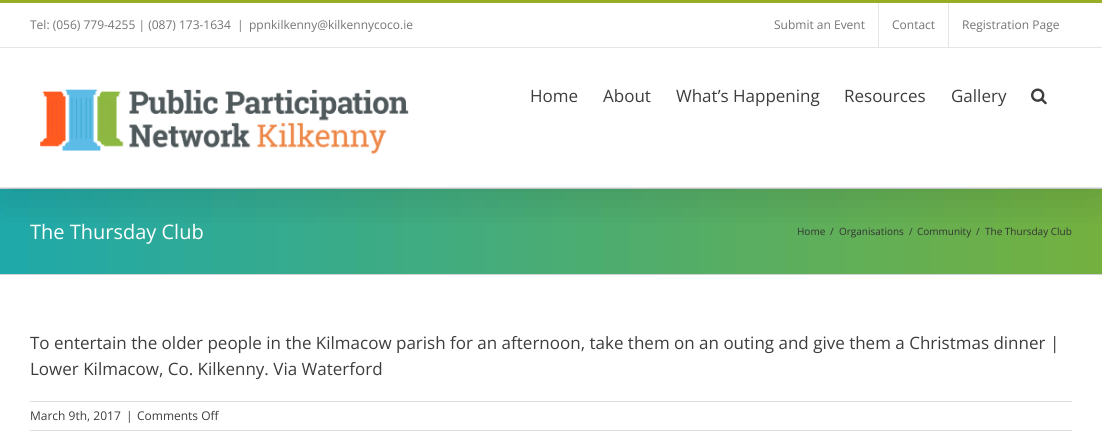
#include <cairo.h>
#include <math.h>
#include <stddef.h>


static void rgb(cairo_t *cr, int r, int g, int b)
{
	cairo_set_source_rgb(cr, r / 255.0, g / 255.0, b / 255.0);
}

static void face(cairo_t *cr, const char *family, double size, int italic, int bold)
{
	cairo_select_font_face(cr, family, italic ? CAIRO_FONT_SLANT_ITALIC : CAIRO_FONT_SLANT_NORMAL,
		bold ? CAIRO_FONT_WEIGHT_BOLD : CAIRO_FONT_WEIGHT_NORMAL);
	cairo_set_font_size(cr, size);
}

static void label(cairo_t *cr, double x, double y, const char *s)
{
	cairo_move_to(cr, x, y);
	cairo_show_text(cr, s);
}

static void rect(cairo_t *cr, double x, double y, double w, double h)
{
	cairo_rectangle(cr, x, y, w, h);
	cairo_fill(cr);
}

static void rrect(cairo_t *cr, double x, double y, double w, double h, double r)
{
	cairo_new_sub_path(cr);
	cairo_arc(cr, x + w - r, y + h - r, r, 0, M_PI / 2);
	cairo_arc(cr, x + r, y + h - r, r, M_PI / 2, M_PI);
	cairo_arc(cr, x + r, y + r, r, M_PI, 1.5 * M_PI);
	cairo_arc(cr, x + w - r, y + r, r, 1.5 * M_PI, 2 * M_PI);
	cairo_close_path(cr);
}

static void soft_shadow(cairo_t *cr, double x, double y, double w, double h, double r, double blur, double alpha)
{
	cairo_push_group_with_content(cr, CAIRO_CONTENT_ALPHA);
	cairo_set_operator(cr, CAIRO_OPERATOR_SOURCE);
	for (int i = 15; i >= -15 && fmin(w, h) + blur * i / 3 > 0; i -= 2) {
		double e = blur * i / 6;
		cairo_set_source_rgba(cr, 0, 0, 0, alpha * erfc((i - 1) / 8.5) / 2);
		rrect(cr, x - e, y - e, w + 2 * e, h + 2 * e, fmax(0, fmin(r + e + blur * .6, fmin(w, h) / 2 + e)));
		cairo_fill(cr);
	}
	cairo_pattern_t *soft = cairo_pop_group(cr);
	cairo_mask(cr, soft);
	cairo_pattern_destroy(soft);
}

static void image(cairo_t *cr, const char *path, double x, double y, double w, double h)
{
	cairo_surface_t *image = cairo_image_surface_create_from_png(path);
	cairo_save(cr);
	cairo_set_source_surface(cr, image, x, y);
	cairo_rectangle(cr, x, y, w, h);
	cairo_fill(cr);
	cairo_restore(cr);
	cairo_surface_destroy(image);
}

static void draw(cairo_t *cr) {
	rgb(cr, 255, 255, 255);
	cairo_paint(cr);
	image(cr, "image2.png", 0, 189, 1102, 85);
	rgb(cr, 210, 211, 212);
	rect(cr, 0, 188, 1102, 1);
	cairo_save(cr);
	cairo_rectangle(cr, 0, 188, 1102, 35);
	cairo_clip(cr);
	rgb(cr, 0, 0, 0);
	soft_shadow(cr, 2, 12, 1098, 184, 0, 25, 0.14);
	cairo_restore(cr);
	rgb(cr, 151, 175, 36);
	rect(cr, 0, 0, 1102, 3);
	rgb(cr, 229, 229, 229);
	rect(cr, 0, 47, 1102, 1);
	face(cr, "Open Sans", 12, 0, 0);
	rgb(cr, 116, 116, 116);
	label(cr, 30, 29, "Tel: (056) 779-4255 | (087) 173-1634");
	label(cr, 237, 29, "|");
	label(cr, 249, 29, "ppnkilkenny@kilkennycoco.ie");
	label(cr, 774, 29, "Submit an Event");
	rgb(cr, 229, 229, 229);
	rect(cr, 878, 3, 1, 44);
	rgb(cr, 116, 116, 116);
	label(cr, 892, 29, "Contact");
	rgb(cr, 229, 229, 229);
	rect(cr, 948, 3, 1, 44);
	rgb(cr, 116, 116, 116);
	label(cr, 962, 29, "Registration Page");
	rgb(cr, 229, 229, 229);
	rect(cr, 0, 187, 1102, 1);
	image(cr, "image0.png", 40, 89, 369, 65);
	face(cr, "Open Sans", 17, 0, 0);
	rgb(cr, 61, 61, 61);
	label(cr, 530, 102, "Home");
	label(cr, 603, 102, "About");
	label(cr, 676, 102, "What’s Happening");
	label(cr, 844, 102, "Resources");
	label(cr, 951, 102, "Gallery");
	image(cr, "image1.png", 1031, 88, 16, 17);
	rgb(cr, 210, 211, 212);
	rect(cr, 0, 274, 1102, 1);
	face(cr, "Open Sans", 20, 0, 0);
	rgb(cr, 255, 255, 255);
	label(cr, 30, 239, "The Thursday Club");
	face(cr, "Open Sans", 10, 0, 0);
	rgb(cr, 51, 51, 51);
	label(cr, 797, 235, "Home");
	label(cr, 830, 235, "/");
	label(cr, 839, 235, "Organisations");
	label(cr, 909, 235, "/");
	label(cr, 917, 235, "Community");
	label(cr, 976, 235, "/");
	label(cr, 985, 235, "The Thursday Club");
	face(cr, "Open Sans", 17, 0, 0);
	rgb(cr, 61, 61, 61);
	label(cr, 30, 349, "To entertain the older people in the Kilmacow parish for an afternoon, take them on an outing and give them a Christmas dinner |");
	label(cr, 30, 375, "Lower Kilmacow, Co. Kilkenny. Via Waterford");
	rgb(cr, 224, 222, 222);
	rect(cr, 30, 401, 1042, 1);
	rect(cr, 30, 430, 1042, 1);
	face(cr, "Open Sans", 12, 0, 0);
	rgb(cr, 61, 61, 61);
	label(cr, 30, 420, "March 9th, 2017");
	label(cr, 126, 420, "|");
	label(cr, 137, 420, "Comments Off");
}

int main(void) {
	cairo_surface_t *surface = cairo_image_surface_create(CAIRO_FORMAT_RGB24, 1102, 443);
	cairo_t *cr = cairo_create(surface);
	cairo_font_options_t *options = cairo_font_options_create();
	cairo_font_options_set_hint_metrics(options, CAIRO_HINT_METRICS_OFF);
	cairo_font_options_set_hint_style(options, CAIRO_HINT_STYLE_NONE);
	cairo_set_font_options(cr, options);
	cairo_set_miter_limit(cr, 4);
	draw(cr);
	cairo_surface_write_to_png(surface, "render.png");
	cairo_font_options_destroy(options);
	cairo_destroy(cr);
	cairo_surface_destroy(surface);
	return 0;
}
